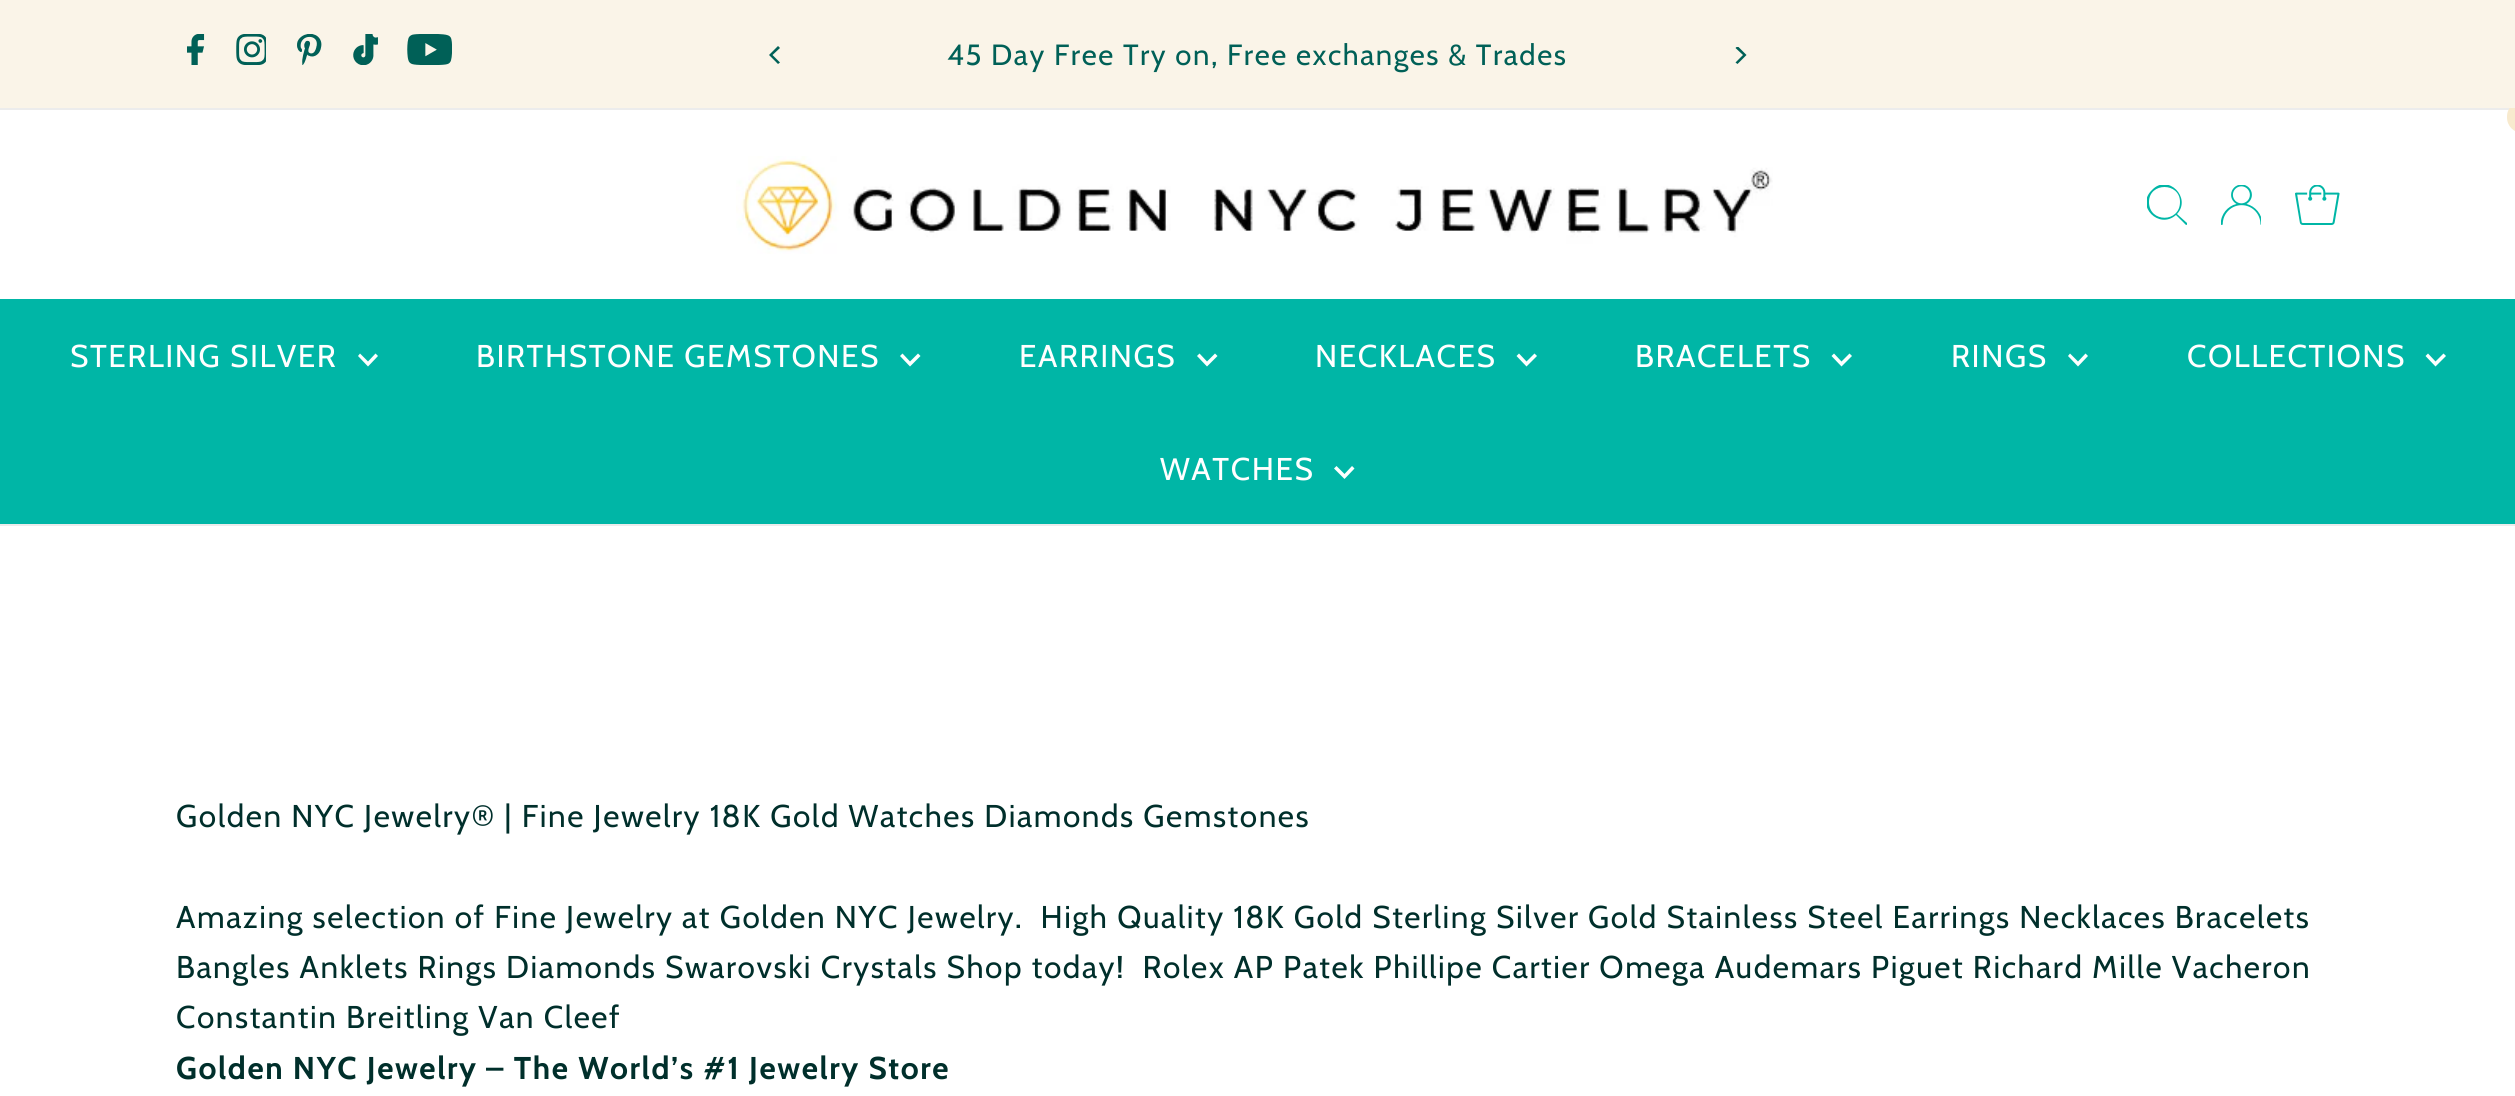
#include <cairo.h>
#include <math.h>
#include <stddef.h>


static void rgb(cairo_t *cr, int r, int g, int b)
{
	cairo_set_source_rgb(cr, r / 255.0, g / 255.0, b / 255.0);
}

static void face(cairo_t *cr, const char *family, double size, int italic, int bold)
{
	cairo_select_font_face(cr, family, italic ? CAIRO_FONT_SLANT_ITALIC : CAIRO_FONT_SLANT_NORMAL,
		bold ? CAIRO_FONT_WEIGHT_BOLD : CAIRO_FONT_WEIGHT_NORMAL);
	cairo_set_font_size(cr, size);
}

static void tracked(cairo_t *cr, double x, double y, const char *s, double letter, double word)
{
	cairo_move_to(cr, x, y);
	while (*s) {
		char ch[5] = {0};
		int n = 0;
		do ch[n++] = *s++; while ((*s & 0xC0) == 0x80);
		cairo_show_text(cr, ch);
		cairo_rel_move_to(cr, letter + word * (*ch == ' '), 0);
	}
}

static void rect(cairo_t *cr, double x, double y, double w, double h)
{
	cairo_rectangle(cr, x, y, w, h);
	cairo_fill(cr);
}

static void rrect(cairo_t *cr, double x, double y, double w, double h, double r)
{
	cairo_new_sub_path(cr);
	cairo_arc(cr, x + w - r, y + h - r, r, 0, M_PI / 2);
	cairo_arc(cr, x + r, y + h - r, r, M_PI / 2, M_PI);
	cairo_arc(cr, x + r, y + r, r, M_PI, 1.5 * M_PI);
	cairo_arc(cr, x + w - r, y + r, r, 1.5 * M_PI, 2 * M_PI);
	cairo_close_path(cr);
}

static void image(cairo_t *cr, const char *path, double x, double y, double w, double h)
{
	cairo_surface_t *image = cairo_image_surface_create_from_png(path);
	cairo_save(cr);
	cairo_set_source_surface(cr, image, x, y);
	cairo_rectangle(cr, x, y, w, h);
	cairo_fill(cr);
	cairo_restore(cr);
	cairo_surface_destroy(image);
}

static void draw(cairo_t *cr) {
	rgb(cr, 255, 255, 255);
	cairo_paint(cr);
	rgb(cr, 236, 236, 236);
	rect(cr, 0, 108, 2515, 2);
	rgb(cr, 248, 234, 206);
	rrect(cr, 2507, 101, 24, 32, 15.5);
	cairo_fill(cr);
	rgb(cr, 250, 244, 232);
	rect(cr, 0, 0, 2515, 108);
	image(cr, "image0.png", 187, 34, 18, 31);
	image(cr, "image1.png", 236, 34, 30, 31);
	image(cr, "image2.png", 297, 34, 25, 31);
	image(cr, "image3.png", 353, 34, 25, 31);
	image(cr, "image4.png", 407, 34, 45, 31);
	rgb(cr, 0, 96, 87);
	cairo_new_path(cr);
	cairo_move_to(cr, 769, 55);
	cairo_line_to(cr, 778, 64);
	cairo_line_to(cr, 780, 62.5);
	cairo_line_to(cr, 772.5, 55);
	cairo_line_to(cr, 780, 48);
	cairo_line_to(cr, 778, 46);
	cairo_close_path(cr);
	cairo_fill(cr);
	face(cr, "Cabin", 29.25, 0, 0);
	tracked(cr, 947, 65, "45 Day Free Try on, Free exchanges & Trades", 1.57, 0);
	cairo_save(cr);
	cairo_rectangle(cr, 1730, 47, 18, 18);
	cairo_clip(cr);
	cairo_new_path(cr);
	cairo_move_to(cr, 1746.5, 55);
	cairo_line_to(cr, 1737.5, 46);
	cairo_line_to(cr, 1735.5, 48);
	cairo_line_to(cr, 1743, 55);
	cairo_line_to(cr, 1735.5, 62.5);
	cairo_line_to(cr, 1737.5, 64);
	cairo_close_path(cr);
	cairo_fill(cr);
	cairo_restore(cr);
	rgb(cr, 236, 236, 236);
	rect(cr, 0, 524, 2515, 2);
	image(cr, "image5.png", 736, 156, 1037, 98);
	cairo_save(cr);
	cairo_rectangle(cr, 2147, 185, 40, 40);
	cairo_clip(cr);
	rgb(cr, 0, 182, 166);
	cairo_new_path(cr);
	cairo_move_to(cr, 2187, 223);
	cairo_line_to(cr, 2177, 214);
	cairo_curve_to(cr, 2192, 198, 2168, 173, 2152, 190);
	cairo_curve_to(cr, 2135, 206, 2159, 230, 2176, 215);
	cairo_line_to(cr, 2186, 225);
	cairo_curve_to(cr, 2187, 225, 2188, 224, 2187, 223);
	cairo_close_path(cr);
	cairo_move_to(cr, 2149, 202);
	cairo_curve_to(cr, 2149, 182, 2180, 182, 2180, 202);
	cairo_curve_to(cr, 2180, 223, 2149, 223, 2149, 202);
	cairo_close_path(cr);
	cairo_fill(cr);
	cairo_restore(cr);
	image(cr, "image6.png", 2221, 185, 40, 40);
	image(cr, "image7.png", 2295, 185, 45, 40);
	rgb(cr, 0, 182, 166);
	rect(cr, 0, 299, 2515, 225);
	face(cr, "Cabin", 31.5, 0, 0);
	rgb(cr, 255, 255, 255);
	tracked(cr, 70, 367, "STERLING SILVER", 1.57, 0);
	cairo_new_path(cr);
	cairo_move_to(cr, 375.5, 353.5);
	cairo_line_to(cr, 368, 361.5);
	cairo_line_to(cr, 360, 353.5);
	cairo_line_to(cr, 358, 356);
	cairo_line_to(cr, 368, 366.5);
	cairo_line_to(cr, 378, 356);
	cairo_close_path(cr);
	cairo_fill(cr);
	tracked(cr, 476, 367, "BIRTHSTONE GEMSTONES", 1.57, 0);
	cairo_new_path(cr);
	cairo_move_to(cr, 918, 353.5);
	cairo_line_to(cr, 910, 361.5);
	cairo_line_to(cr, 902.5, 353.5);
	cairo_line_to(cr, 900, 356);
	cairo_line_to(cr, 910, 366.5);
	cairo_line_to(cr, 920.5, 356);
	cairo_close_path(cr);
	cairo_fill(cr);
	tracked(cr, 1019, 367, "EARRINGS", 1.57, 0);
	cairo_new_path(cr);
	cairo_move_to(cr, 1215, 353.5);
	cairo_line_to(cr, 1207, 361.5);
	cairo_line_to(cr, 1199.5, 353.5);
	cairo_line_to(cr, 1197, 356);
	cairo_line_to(cr, 1207, 366.5);
	cairo_line_to(cr, 1217.5, 356);
	cairo_close_path(cr);
	cairo_fill(cr);
	tracked(cr, 1315, 367, "NECKLACES", 1.57, 0);
	cairo_new_path(cr);
	cairo_move_to(cr, 1534.5, 353.5);
	cairo_line_to(cr, 1526.5, 361.5);
	cairo_line_to(cr, 1519, 353.5);
	cairo_line_to(cr, 1516.5, 356);
	cairo_line_to(cr, 1526.5, 366.5);
	cairo_line_to(cr, 1537, 356);
	cairo_close_path(cr);
	cairo_fill(cr);
	tracked(cr, 1635, 367, "BRACELETS", 1.57, 0);
	cairo_new_path(cr);
	cairo_move_to(cr, 1849.5, 353.5);
	cairo_line_to(cr, 1841.5, 361.5);
	cairo_line_to(cr, 1834, 353.5);
	cairo_line_to(cr, 1831.5, 356);
	cairo_line_to(cr, 1841.5, 366.5);
	cairo_line_to(cr, 1852, 356);
	cairo_close_path(cr);
	cairo_fill(cr);
	tracked(cr, 1951, 367, "RINGS", 1.57, 0);
	cairo_new_path(cr);
	cairo_move_to(cr, 2085.5, 353.5);
	cairo_line_to(cr, 2078, 361.5);
	cairo_line_to(cr, 2070, 353.5);
	cairo_line_to(cr, 2068, 356);
	cairo_line_to(cr, 2078, 366.5);
	cairo_line_to(cr, 2088, 356);
	cairo_close_path(cr);
	cairo_fill(cr);
	tracked(cr, 2187, 367, "COLLECTIONS", 1.57, 0);
	cairo_new_path(cr);
	cairo_move_to(cr, 2443.5, 353.5);
	cairo_line_to(cr, 2435.5, 361.5);
	cairo_line_to(cr, 2428, 353.5);
	cairo_line_to(cr, 2425.5, 356);
	cairo_line_to(cr, 2435.5, 366.5);
	cairo_line_to(cr, 2446, 356);
	cairo_close_path(cr);
	cairo_fill(cr);
	tracked(cr, 1160, 480, "WATCHES", 1.57, 0);
	cairo_new_path(cr);
	cairo_move_to(cr, 1352, 466);
	cairo_line_to(cr, 1344.5, 474);
	cairo_line_to(cr, 1336.5, 466);
	cairo_line_to(cr, 1334, 468.5);
	cairo_line_to(cr, 1344.5, 479);
	cairo_line_to(cr, 1354.5, 468.5);
	cairo_close_path(cr);
	cairo_fill(cr);
	rgb(cr, 0, 47, 43);
	tracked(cr, 176, 827, "Golden NYC Jewelry® | Fine Jewelry 18K Gold Watches Diamonds Gemstones", 1.57, 0);
	tracked(cr, 176, 928, "Amazing selection of Fine Jewelry at Golden NYC Jewelry.  High Quality 18K Gold Sterling Silver Gold Stainless Steel Earrings Necklaces Bracelets", 1.57, 0);
	tracked(cr, 176, 978, "Bangles Anklets Rings Diamonds Swarovski Crystals Shop today!  Rolex AP Patek Phillipe Cartier Omega Audemars Piguet Richard Mille Vacheron", 1.57, 0);
	tracked(cr, 176, 1028, "Constantin Breitling Van Cleef", 1.57, 0);
	face(cr, "Cabin", 31.5, 0, 1);
	tracked(cr, 176, 1079, "Golden NYC Jewelry – The World’s #1 Jewelry Store", 1.57, 0);
}

int main(void) {
	cairo_surface_t *surface = cairo_image_surface_create(CAIRO_FORMAT_RGB24, 2515, 1096);
	cairo_t *cr = cairo_create(surface);
	cairo_font_options_t *options = cairo_font_options_create();
	cairo_font_options_set_hint_metrics(options, CAIRO_HINT_METRICS_OFF);
	cairo_font_options_set_hint_style(options, CAIRO_HINT_STYLE_NONE);
	cairo_set_font_options(cr, options);
	cairo_set_miter_limit(cr, 4);
	draw(cr);
	cairo_surface_write_to_png(surface, "render.png");
	cairo_font_options_destroy(options);
	cairo_destroy(cr);
	cairo_surface_destroy(surface);
	return 0;
}
